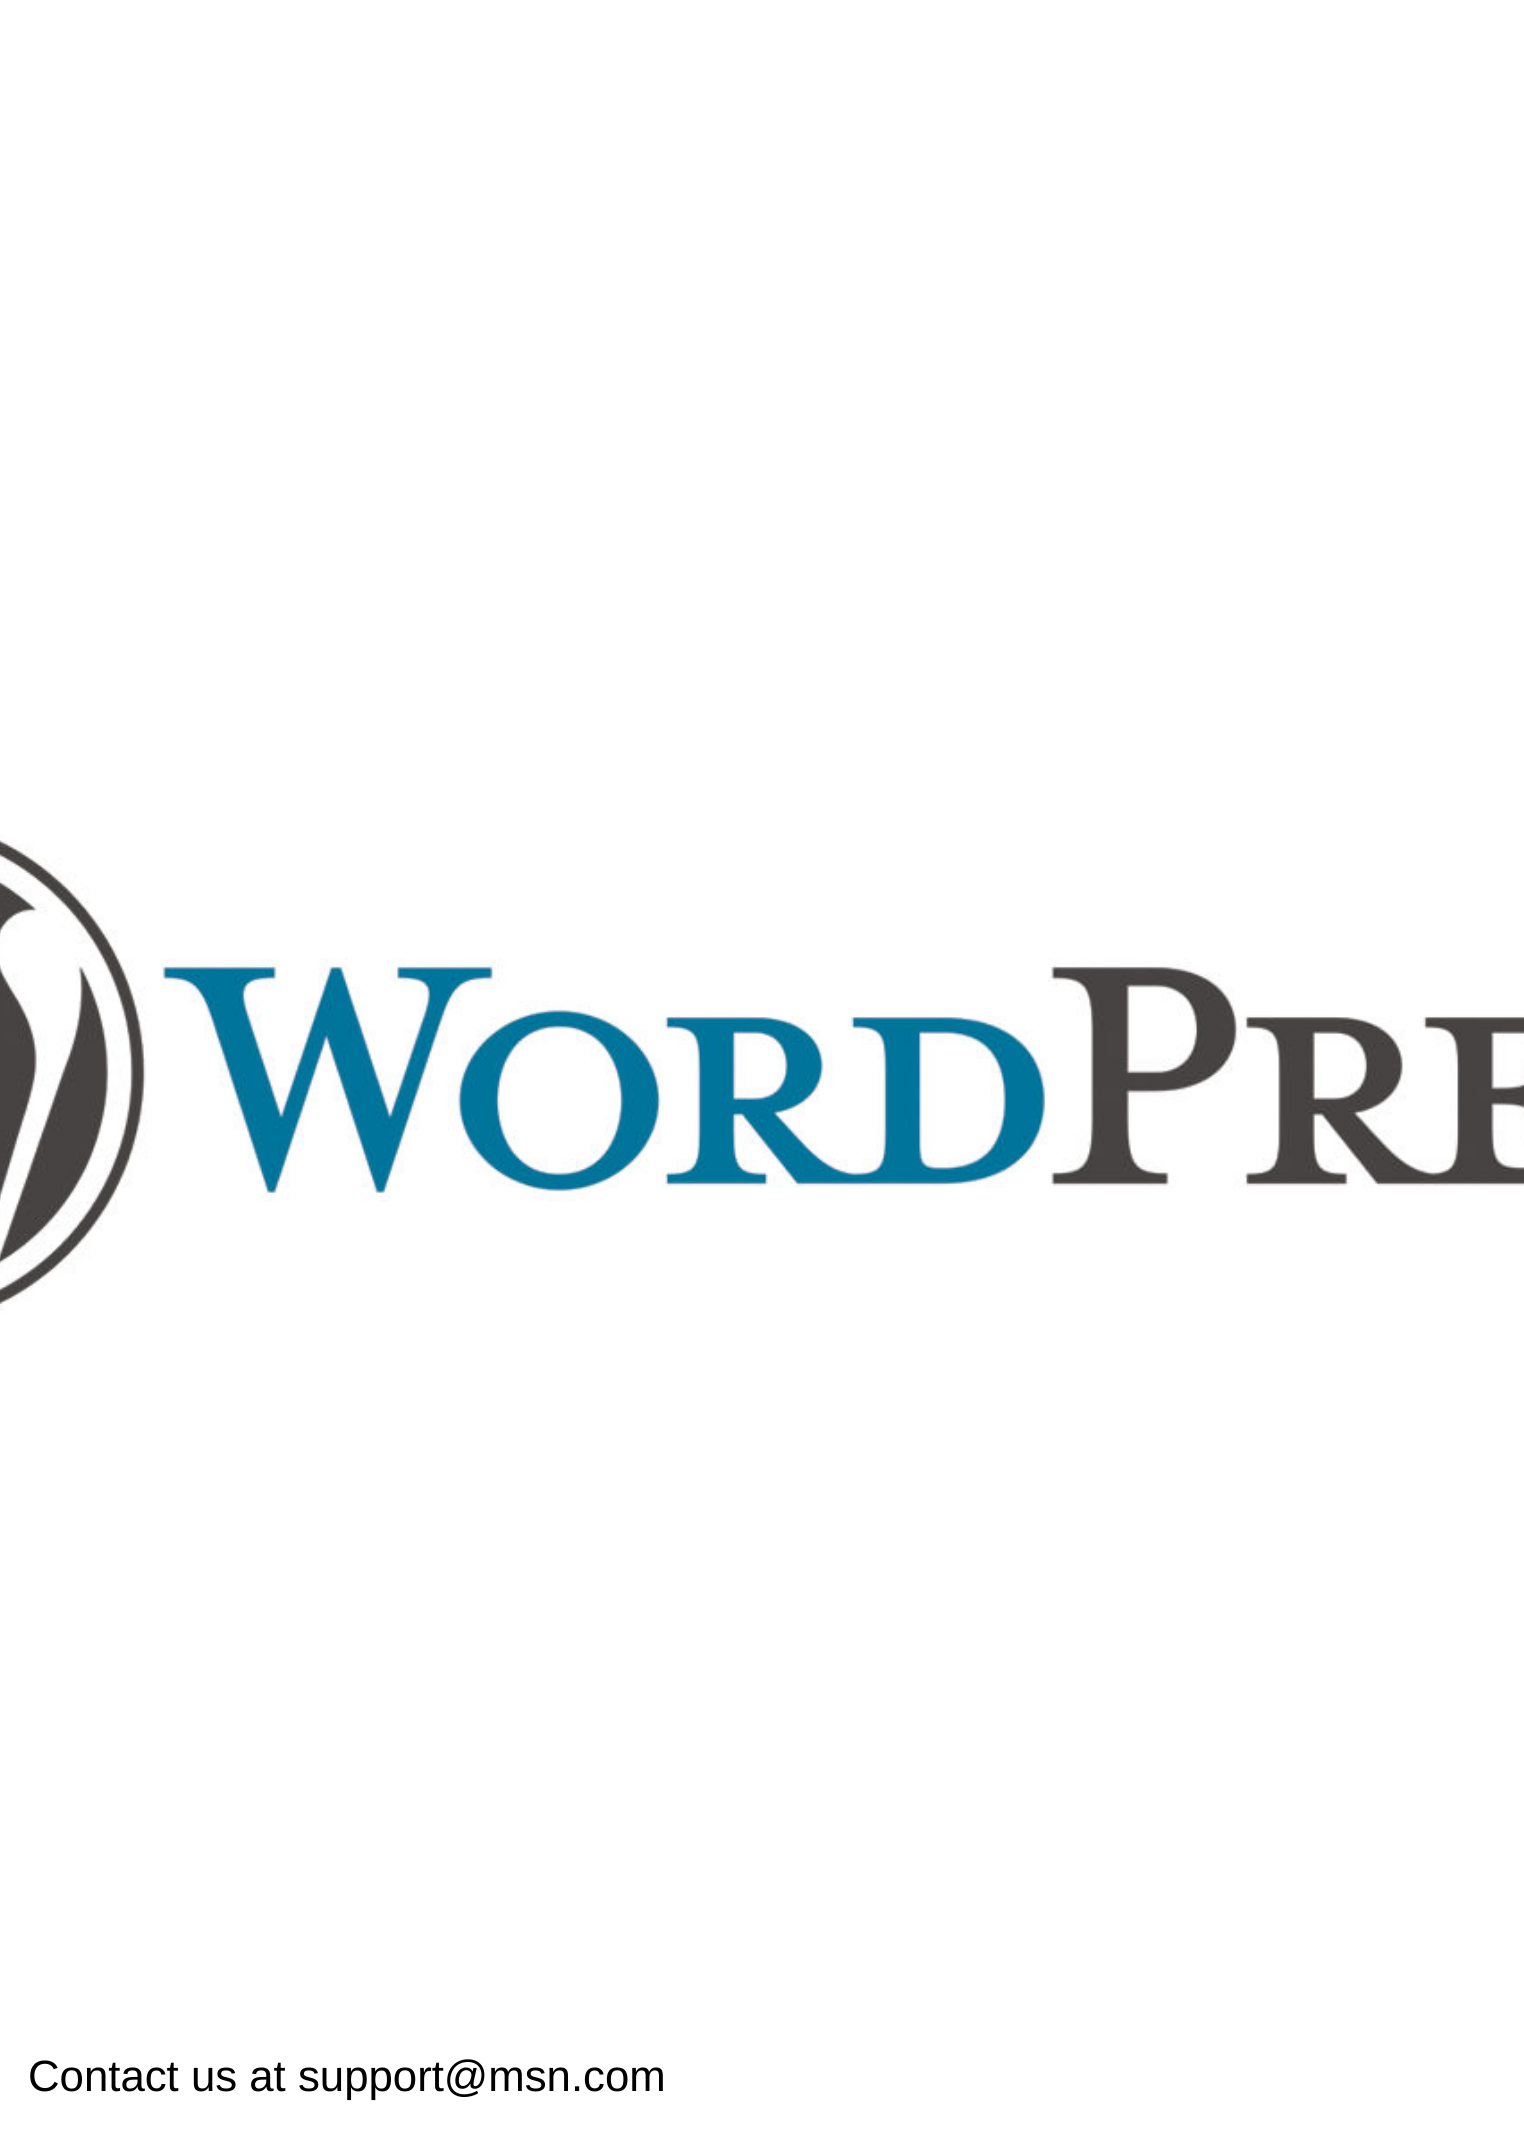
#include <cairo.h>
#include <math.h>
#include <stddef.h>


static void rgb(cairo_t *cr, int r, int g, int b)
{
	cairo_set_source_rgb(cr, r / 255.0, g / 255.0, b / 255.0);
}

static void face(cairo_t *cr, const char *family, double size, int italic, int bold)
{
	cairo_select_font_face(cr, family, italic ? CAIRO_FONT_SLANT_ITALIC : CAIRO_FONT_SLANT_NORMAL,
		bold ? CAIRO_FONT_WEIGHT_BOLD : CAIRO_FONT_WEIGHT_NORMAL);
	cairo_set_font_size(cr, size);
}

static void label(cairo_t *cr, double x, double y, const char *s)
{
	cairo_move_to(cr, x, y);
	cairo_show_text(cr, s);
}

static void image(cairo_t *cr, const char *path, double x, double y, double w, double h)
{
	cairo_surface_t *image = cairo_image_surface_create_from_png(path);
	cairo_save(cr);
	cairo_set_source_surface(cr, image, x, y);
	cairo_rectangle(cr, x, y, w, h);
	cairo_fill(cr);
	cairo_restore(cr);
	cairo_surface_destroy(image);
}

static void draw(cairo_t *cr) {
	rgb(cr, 255, 255, 255);
	cairo_paint(cr);
	image(cr, "image0.png", 0, 835, 1524, 479);
	face(cr, "Liberation Sans", 43.75, 0, 0);
	rgb(cr, 0, 0, 0);
	label(cr, 28, 2091, "Contact us at support@msn.com");
}

int main(void) {
	cairo_surface_t *surface = cairo_image_surface_create(CAIRO_FORMAT_RGB24, 1524, 2144);
	cairo_t *cr = cairo_create(surface);
	cairo_font_options_t *options = cairo_font_options_create();
	cairo_font_options_set_hint_metrics(options, CAIRO_HINT_METRICS_OFF);
	cairo_font_options_set_hint_style(options, CAIRO_HINT_STYLE_NONE);
	cairo_set_font_options(cr, options);
	cairo_set_miter_limit(cr, 4);
	draw(cr);
	cairo_surface_write_to_png(surface, "render.png");
	cairo_font_options_destroy(options);
	cairo_destroy(cr);
	cairo_surface_destroy(surface);
	return 0;
}
